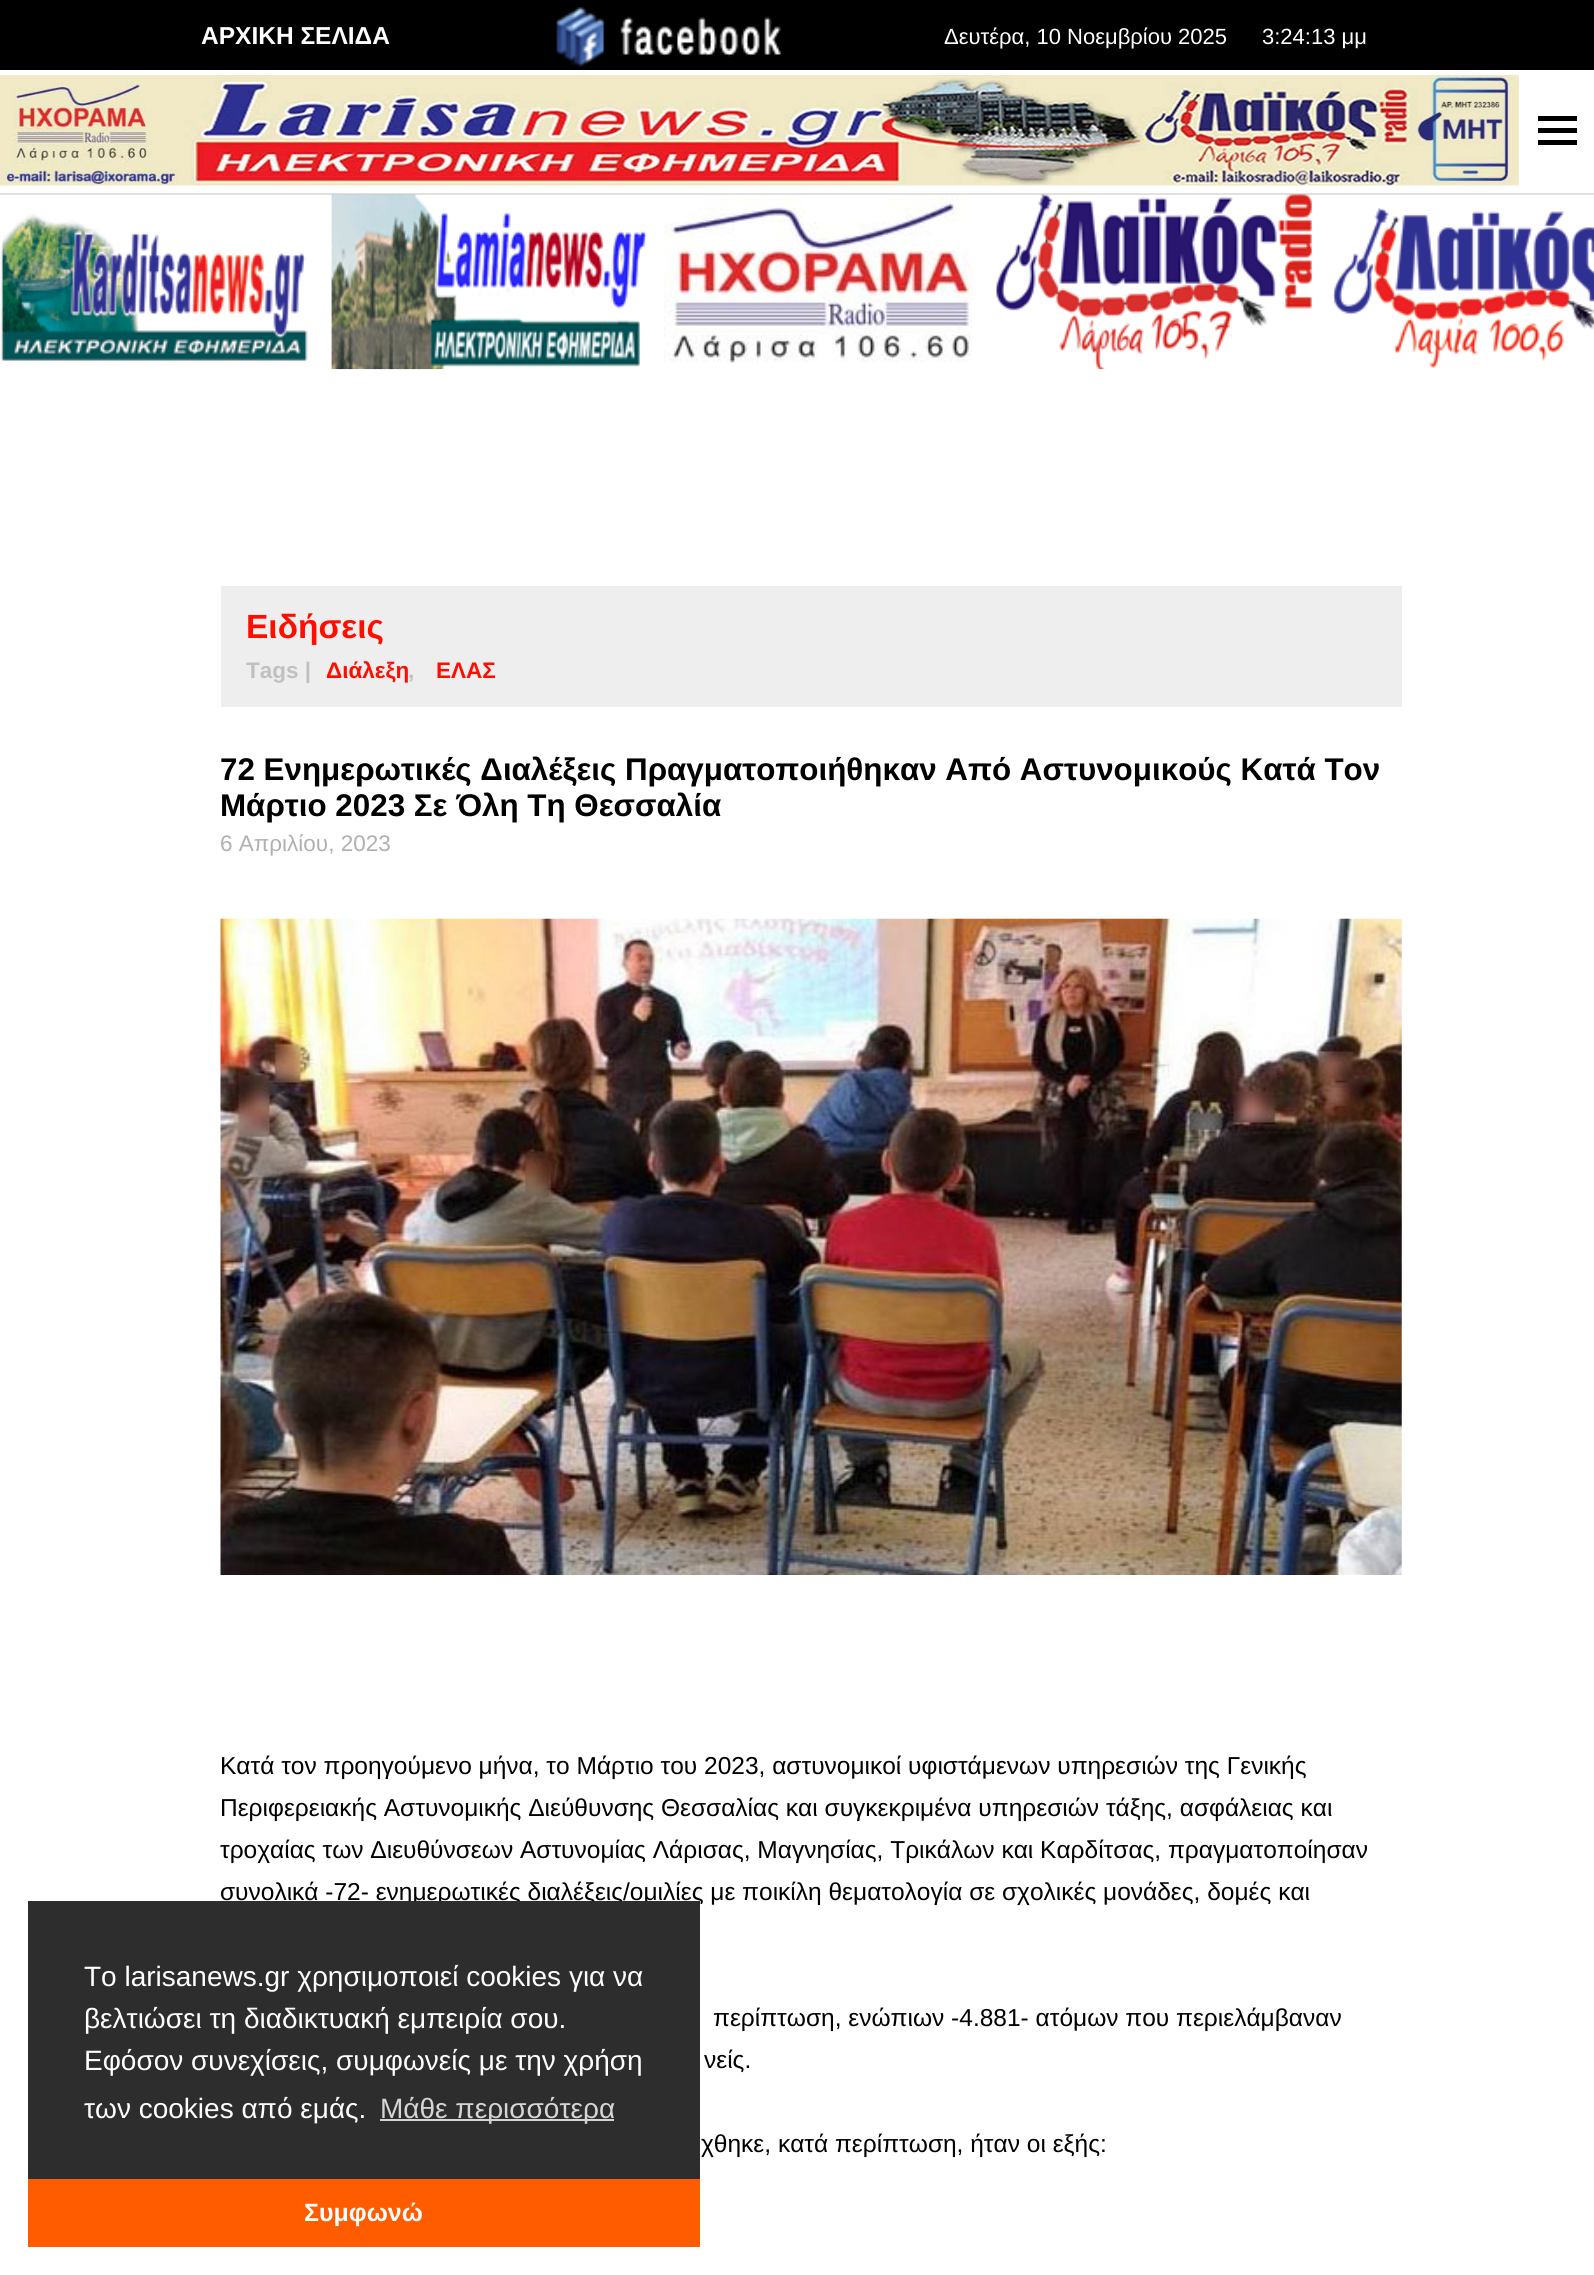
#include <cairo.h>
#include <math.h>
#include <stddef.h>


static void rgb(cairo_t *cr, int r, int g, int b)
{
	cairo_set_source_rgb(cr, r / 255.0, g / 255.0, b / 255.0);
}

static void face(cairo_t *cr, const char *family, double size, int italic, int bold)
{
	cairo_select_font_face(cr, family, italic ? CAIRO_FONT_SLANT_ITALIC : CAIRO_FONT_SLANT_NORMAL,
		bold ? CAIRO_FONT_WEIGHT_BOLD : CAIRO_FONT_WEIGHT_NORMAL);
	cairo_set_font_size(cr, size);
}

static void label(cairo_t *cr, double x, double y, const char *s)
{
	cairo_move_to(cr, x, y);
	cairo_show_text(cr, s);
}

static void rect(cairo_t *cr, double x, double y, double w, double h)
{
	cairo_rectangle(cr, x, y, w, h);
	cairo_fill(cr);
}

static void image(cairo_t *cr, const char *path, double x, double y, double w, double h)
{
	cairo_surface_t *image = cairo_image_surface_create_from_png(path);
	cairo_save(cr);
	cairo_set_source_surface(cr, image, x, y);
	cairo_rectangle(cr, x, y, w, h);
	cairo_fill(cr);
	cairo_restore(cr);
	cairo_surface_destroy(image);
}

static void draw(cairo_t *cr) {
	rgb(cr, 255, 255, 255);
	cairo_paint(cr);
	image(cr, "image3.png", 331, 194, 316, 176);
	image(cr, "image5.png", 996, 194, 316, 176);
	cairo_set_source_rgba(cr, 0.533, 0.533, 0.533, 0.25);
	rect(cr, 0, 193, 1594, 2);
	rgb(cr, 0, 0, 0);
	rect(cr, 0, 0, 1594, 70);
	face(cr, "Liberation Sans", 24.5, 0, 1);
	rgb(cr, 255, 255, 255);
	label(cr, 201, 44, "ΑΡΧΙΚΗ ΣΕΛΙΔΑ");
	image(cr, "image0.png", 556, 7, 225, 60);
	face(cr, "Liberation Sans", 22, 0, 0);
	label(cr, 944, 44, "Δευτέρα, 10 Νοεμβρίου 2025");
	label(cr, 1262, 44, "3:24:13 μμ");
	image(cr, "image1.png", 0, 75, 1519, 111);
	rgb(cr, 0, 0, 0);
	rect(cr, 1538, 128, 39, 5);
	rect(cr, 1538, 116, 39, 5);
	rect(cr, 1538, 140, 39, 5);
	image(cr, "image2.png", 0, 214, 308, 147);
	image(cr, "image4.png", 664, 195, 309, 168);
	image(cr, "image6.png", 1332, 207, 262, 161);
	rgb(cr, 238, 238, 238);
	rect(cr, 221, 586, 1181, 121);
	face(cr, "Liberation Sans", 33.5, 0, 1);
	rgb(cr, 255, 14, 0);
	label(cr, 246, 638, "Ειδήσεις");
	face(cr, "Liberation Sans", 22.5, 0, 1);
	rgb(cr, 192, 192, 192);
	label(cr, 246, 678, "Tags |");
	rgb(cr, 255, 14, 0);
	label(cr, 326, 678, "Διάλεξη");
	rgb(cr, 192, 192, 192);
	label(cr, 408, 678, ",");
	rgb(cr, 255, 14, 0);
	label(cr, 436, 678, "ΕΛΑΣ");
	face(cr, "Liberation Sans", 31.35, 0, 1);
	rgb(cr, 0, 0, 0);
	label(cr, 220, 780, "72 Ενημερωτικές Διαλέξεις Πραγματοποιήθηκαν Από Αστυνομικούς Κατά Τον");
	label(cr, 220, 816, "Μάρτιο 2023 Σε Όλη Τη Θεσσαλία");
	face(cr, "Liberation Sans", 22.5, 0, 0);
	rgb(cr, 176, 176, 176);
	label(cr, 220, 851, "6 Απριλίου, 2023");
	image(cr, "image7.png", 220, 918, 1182, 657);
	face(cr, "Liberation Sans", 24.5, 0, 0);
	rgb(cr, 0, 0, 0);
	label(cr, 220, 1774, "Κατά τον προηγούμενο μήνα, το Μάρτιο του 2023, αστυνομικοί υφιστάμενων υπηρεσιών της Γενικής");
	label(cr, 220, 1816, "Περιφερειακής Αστυνομικής Διεύθυνσης Θεσσαλίας και συγκεκριμένα υπηρεσιών τάξης, ασφάλειας και");
	label(cr, 220, 1858, "τροχαίας των Διευθύνσεων Αστυνομίας Λάρισας, Μαγνησίας, Τρικάλων και Καρδίτσας, πραγματοποίησαν");
	label(cr, 220, 1900, "συνολικά -72- ενημερωτικές διαλέξεις/ομιλίες με ποικίλη θεματολογία σε σχολικές μονάδες, δομές και");
	label(cr, 713, 2026, "περίπτωση, ενώπιων -4.881- ατόμων που περιελάμβαναν");
	label(cr, 704, 2068, "νείς.");
	label(cr, 701, 2152, "χθηκε, κατά περίπτωση, ήταν οι εξής:");
	rgb(cr, 45, 45, 45);
	rect(cr, 28, 1901, 672, 278);
	face(cr, "Liberation Sans", 28, 0, 0);
	rgb(cr, 255, 255, 255);
	label(cr, 84, 1986, "Το larisanews.gr χρησιμοποιεί cookies για να");
	label(cr, 84, 2028, "βελτιώσει τη διαδικτυακή εμπειρία σου.");
	label(cr, 84, 2070, "Εφόσον συνεχίσεις, συμφωνείς με την χρήση");
	label(cr, 84, 2118, "των cookies από εμάς.");
	rgb(cr, 213, 213, 213);
	rect(cr, 380, 2119, 234, 2);
	label(cr, 380, 2118, "Μάθε περισσότερα");
	rgb(cr, 255, 92, 0);
	rect(cr, 28, 2179, 672, 68);
	face(cr, "Liberation Sans", 25, 0, 1);
	rgb(cr, 255, 255, 255);
	label(cr, 304, 2221, "Συμφωνώ");
}

int main(void) {
	cairo_surface_t *surface = cairo_image_surface_create(CAIRO_FORMAT_RGB24, 1594, 2275);
	cairo_t *cr = cairo_create(surface);
	cairo_font_options_t *options = cairo_font_options_create();
	cairo_font_options_set_hint_metrics(options, CAIRO_HINT_METRICS_OFF);
	cairo_font_options_set_hint_style(options, CAIRO_HINT_STYLE_NONE);
	cairo_set_font_options(cr, options);
	cairo_set_miter_limit(cr, 4);
	draw(cr);
	cairo_surface_write_to_png(surface, "render.png");
	cairo_font_options_destroy(options);
	cairo_destroy(cr);
	cairo_surface_destroy(surface);
	return 0;
}
